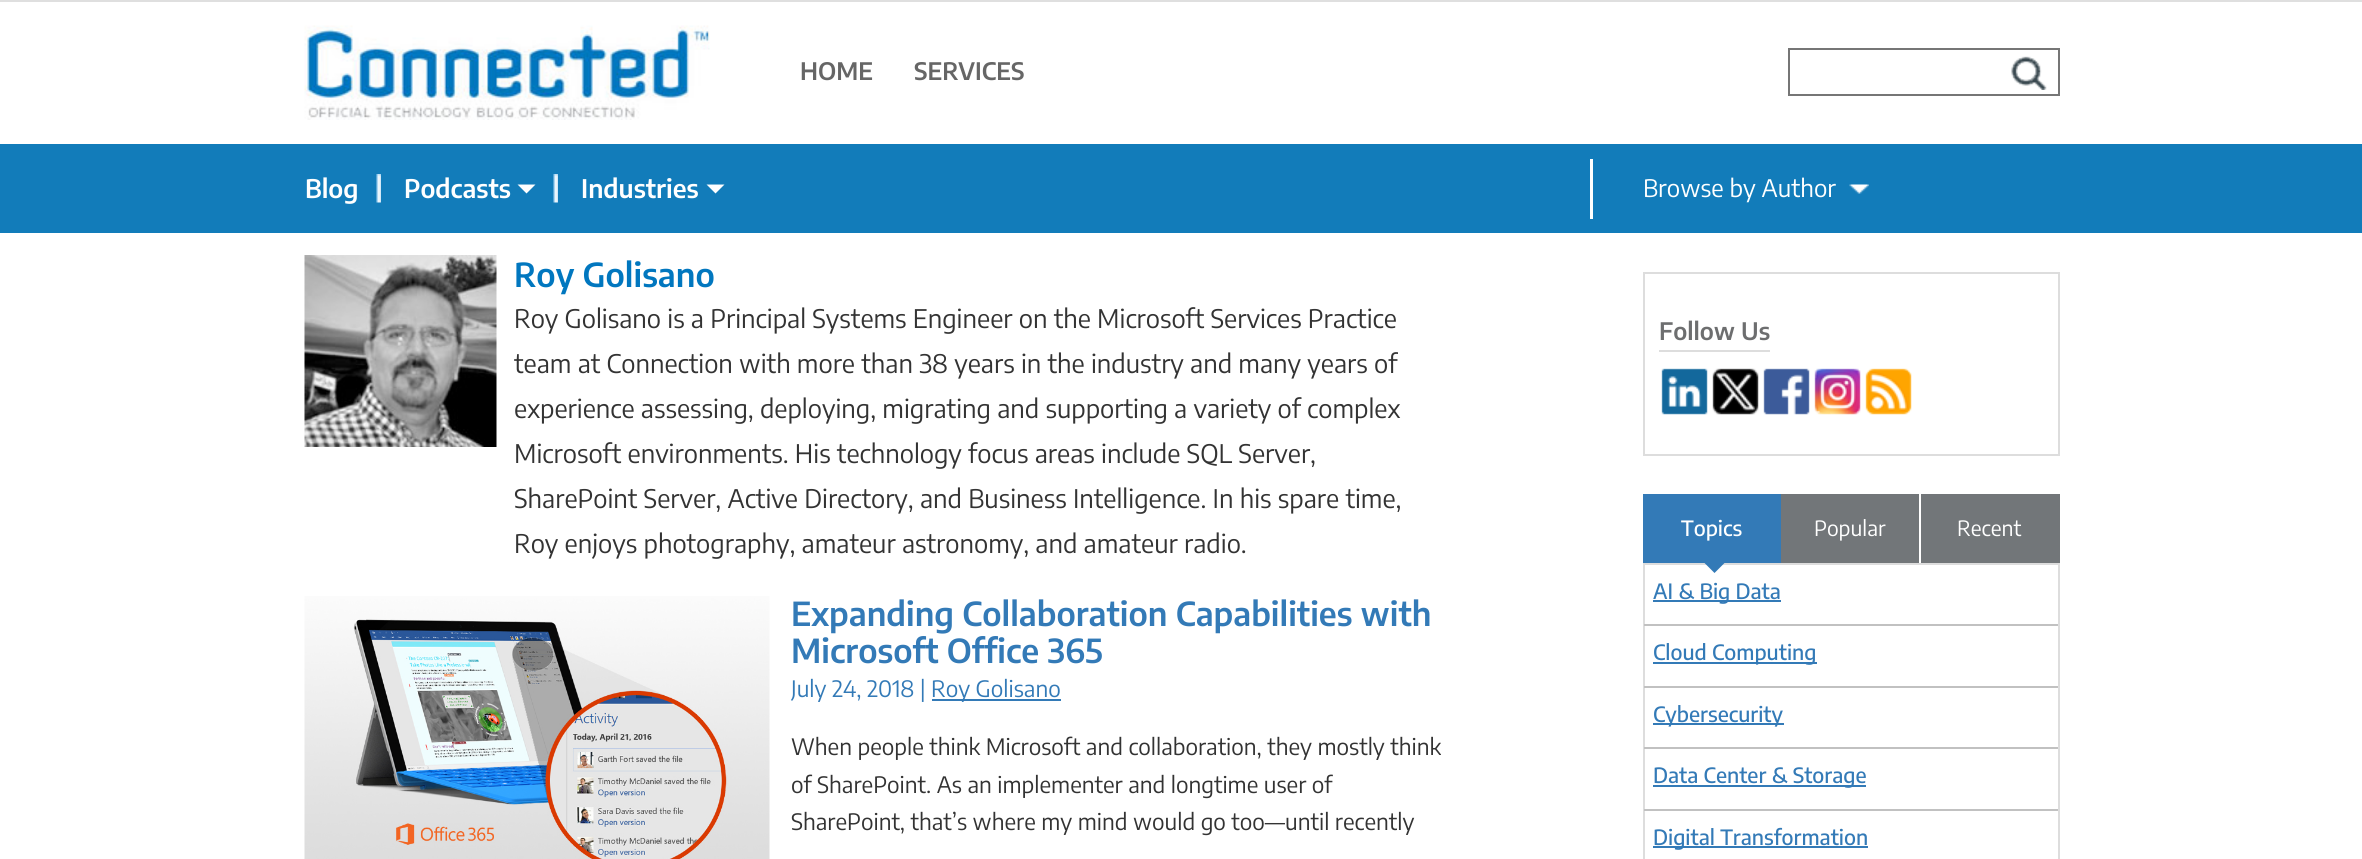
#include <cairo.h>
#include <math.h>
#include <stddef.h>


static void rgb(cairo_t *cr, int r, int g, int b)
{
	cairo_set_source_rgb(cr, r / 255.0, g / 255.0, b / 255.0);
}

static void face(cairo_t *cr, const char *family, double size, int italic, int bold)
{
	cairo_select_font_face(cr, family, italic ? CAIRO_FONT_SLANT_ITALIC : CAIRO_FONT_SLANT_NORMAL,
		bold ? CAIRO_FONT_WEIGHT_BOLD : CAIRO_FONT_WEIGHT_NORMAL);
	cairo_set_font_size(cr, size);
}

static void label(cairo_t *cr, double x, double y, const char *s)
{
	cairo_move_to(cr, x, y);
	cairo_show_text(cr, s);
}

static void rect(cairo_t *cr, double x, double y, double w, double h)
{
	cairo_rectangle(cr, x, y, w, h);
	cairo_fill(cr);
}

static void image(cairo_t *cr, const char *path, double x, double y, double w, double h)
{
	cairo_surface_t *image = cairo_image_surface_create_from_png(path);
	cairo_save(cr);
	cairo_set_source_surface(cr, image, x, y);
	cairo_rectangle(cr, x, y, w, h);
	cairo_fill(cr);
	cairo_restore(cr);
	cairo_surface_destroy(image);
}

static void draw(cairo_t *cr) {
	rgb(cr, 255, 255, 255);
	cairo_paint(cr);
	rgb(cr, 223, 223, 223);
	rect(cr, 0, 0, 2362, 2);
	image(cr, "image0.png", 304, 25, 406, 95);
	face(cr, "Encode Sans Condensed SemiBold", 24, 0, 0);
	rgb(cr, 102, 102, 102);
	label(cr, 800, 80, "HOME");
	label(cr, 914, 80, "SERVICES");
	cairo_rectangle(cr, 1789, 49, 270, 46);
	rgb(cr, 118, 118, 118);
	cairo_stroke(cr);
	image(cr, "image1.png", 2011, 56, 36, 34);
	rgb(cr, 18, 124, 186);
	rect(cr, 0, 144, 2362, 89);
	rgb(cr, 255, 255, 255);
	rect(cr, 1590, 159, 3, 60);
	image(cr, "image2.png", 376, 174, 5, 29);
	face(cr, "Encode Sans Condensed SemiBold", 25.5, 0, 0);
	label(cr, 305, 198, "Blog");
	image(cr, "image2.png", 553, 174, 5, 29);
	label(cr, 404, 198, "Podcasts");
	cairo_new_path(cr);
	cairo_move_to(cr, 517.5, 184.5);
	cairo_line_to(cr, 535.5, 184.5);
	cairo_line_to(cr, 526.5, 193.5);
	cairo_close_path(cr);
	cairo_fill(cr);
	label(cr, 581, 198, "Industries");
	cairo_new_path(cr);
	cairo_move_to(cr, 706.5, 184.5);
	cairo_line_to(cr, 724.5, 184.5);
	cairo_line_to(cr, 715.5, 193.5);
	cairo_close_path(cr);
	cairo_fill(cr);
	face(cr, "Encode Sans Condensed", 24, 0, 0);
	label(cr, 1643, 197, "Browse by Author");
	image(cr, "image3.png", 1849, 184, 20, 10);
	image(cr, "image4.png", 304, 255, 193, 192);
	face(cr, "Encode Sans Condensed SemiBold", 33, 0, 0);
	rgb(cr, 1, 119, 191);
	label(cr, 514, 287, "Roy Golisano");
	face(cr, "Encode Sans Condensed", 25.5, 0, 0);
	rgb(cr, 51, 51, 51);
	label(cr, 514, 328, "Roy Golisano is a Principal Systems Engineer on the Microsoft Services Practice");
	label(cr, 514, 373, "team at Connection with more than 38 years in the industry and many years of");
	label(cr, 514, 418, "experience assessing, deploying, migrating and supporting a variety of complex");
	label(cr, 514, 463, "Microsoft environments. His technology focus areas include SQL Server,");
	label(cr, 514, 508, "SharePoint Server, Active Directory, and Business Intelligence. In his spare time,");
	label(cr, 514, 553, "Roy enjoys photography, amateur astronomy, and amateur radio.");
	image(cr, "image5.png", 304, 596, 466, 263);
	face(cr, "Encode Sans Condensed SemiBold", 33, 0, 0);
	rgb(cr, 51, 122, 183);
	label(cr, 791, 626, "Expanding Collaboration Capabilities with");
	label(cr, 791, 663, "Microsoft Office 365");
	face(cr, "Encode Sans Condensed", 22.5, 0, 0);
	label(cr, 791, 697, "July 24, 2018 |");
	rect(cr, 932, 699, 129, 2);
	label(cr, 931, 697, "Roy Golisano");
	rgb(cr, 51, 51, 51);
	label(cr, 791, 755, "When people think Microsoft and collaboration, they mostly think");
	label(cr, 791, 793, "of SharePoint. As an implementer and longtime user of");
	label(cr, 791, 830, "SharePoint, that’s where my mind would go too—until recently");
	cairo_rectangle(cr, 1644, 273, 415, 182);
	rgb(cr, 221, 221, 221);
	cairo_stroke(cr);
	rect(cr, 1659, 350, 111, 2);
	face(cr, "Encode Sans Condensed SemiBold", 24, 0, 0);
	rgb(cr, 109, 110, 111);
	label(cr, 1659, 340, "Follow Us");
	image(cr, "image6.png", 1661, 368, 47, 47);
	image(cr, "image7.png", 1712, 368, 47, 47);
	image(cr, "image8.png", 1763, 368, 47, 47);
	image(cr, "image9.png", 1814, 368, 47, 47);
	image(cr, "image10.png", 1865, 368, 47, 47);
	rgb(cr, 114, 118, 121);
	rect(cr, 1781, 494, 279, 69);
	rgb(cr, 51, 122, 183);
	rect(cr, 1643, 494, 138, 69);
	face(cr, "Encode Sans Condensed Medium", 21, 0, 0);
	rgb(cr, 255, 255, 255);
	label(cr, 1681, 536, "Topics");
	cairo_rectangle(cr, 1644, 564, 415, 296);
	rgb(cr, 221, 221, 221);
	cairo_stroke(cr);
	rgb(cr, 51, 122, 183);
	cairo_new_path(cr);
	cairo_move_to(cr, 1704, 562.5);
	cairo_line_to(cr, 1725, 562.5);
	cairo_line_to(cr, 1714.5, 573);
	cairo_close_path(cr);
	cairo_fill(cr);
	rgb(cr, 255, 255, 255);
	rect(cr, 1919, 494, 2, 69);
	face(cr, "Encode Sans Condensed", 21, 0, 0);
	label(cr, 1814, 536, "Popular");
	label(cr, 1957, 536, "Recent");
	rgb(cr, 193, 193, 193);
	rect(cr, 1644, 624, 414, 2);
	rgb(cr, 51, 122, 183);
	rect(cr, 1653, 600, 128, 2);
	face(cr, "Encode Sans Condensed Medium", 21, 0, 0);
	label(cr, 1653, 599, "AI & Big Data");
	rgb(cr, 193, 193, 193);
	rect(cr, 1644, 686, 414, 2);
	rgb(cr, 51, 122, 183);
	rect(cr, 1653, 662, 164, 2);
	label(cr, 1653, 660, "Cloud Computing");
	rgb(cr, 193, 193, 193);
	rect(cr, 1644, 747, 414, 2);
	rgb(cr, 51, 122, 183);
	rect(cr, 1653, 723, 131, 2);
	label(cr, 1653, 722, "Cybersecurity");
	rgb(cr, 193, 193, 193);
	rect(cr, 1644, 809, 414, 2);
	rgb(cr, 51, 122, 183);
	rect(cr, 1653, 785, 213, 2);
	label(cr, 1653, 783, "Data Center & Storage");
	rect(cr, 1653, 846, 215, 2);
	label(cr, 1653, 845, "Digital Transformation");
}

int main(void) {
	cairo_surface_t *surface = cairo_image_surface_create(CAIRO_FORMAT_RGB24, 2362, 859);
	cairo_t *cr = cairo_create(surface);
	cairo_font_options_t *options = cairo_font_options_create();
	cairo_font_options_set_hint_metrics(options, CAIRO_HINT_METRICS_OFF);
	cairo_font_options_set_hint_style(options, CAIRO_HINT_STYLE_NONE);
	cairo_set_font_options(cr, options);
	cairo_set_miter_limit(cr, 4);
	draw(cr);
	cairo_surface_write_to_png(surface, "render.png");
	cairo_font_options_destroy(options);
	cairo_destroy(cr);
	cairo_surface_destroy(surface);
	return 0;
}
